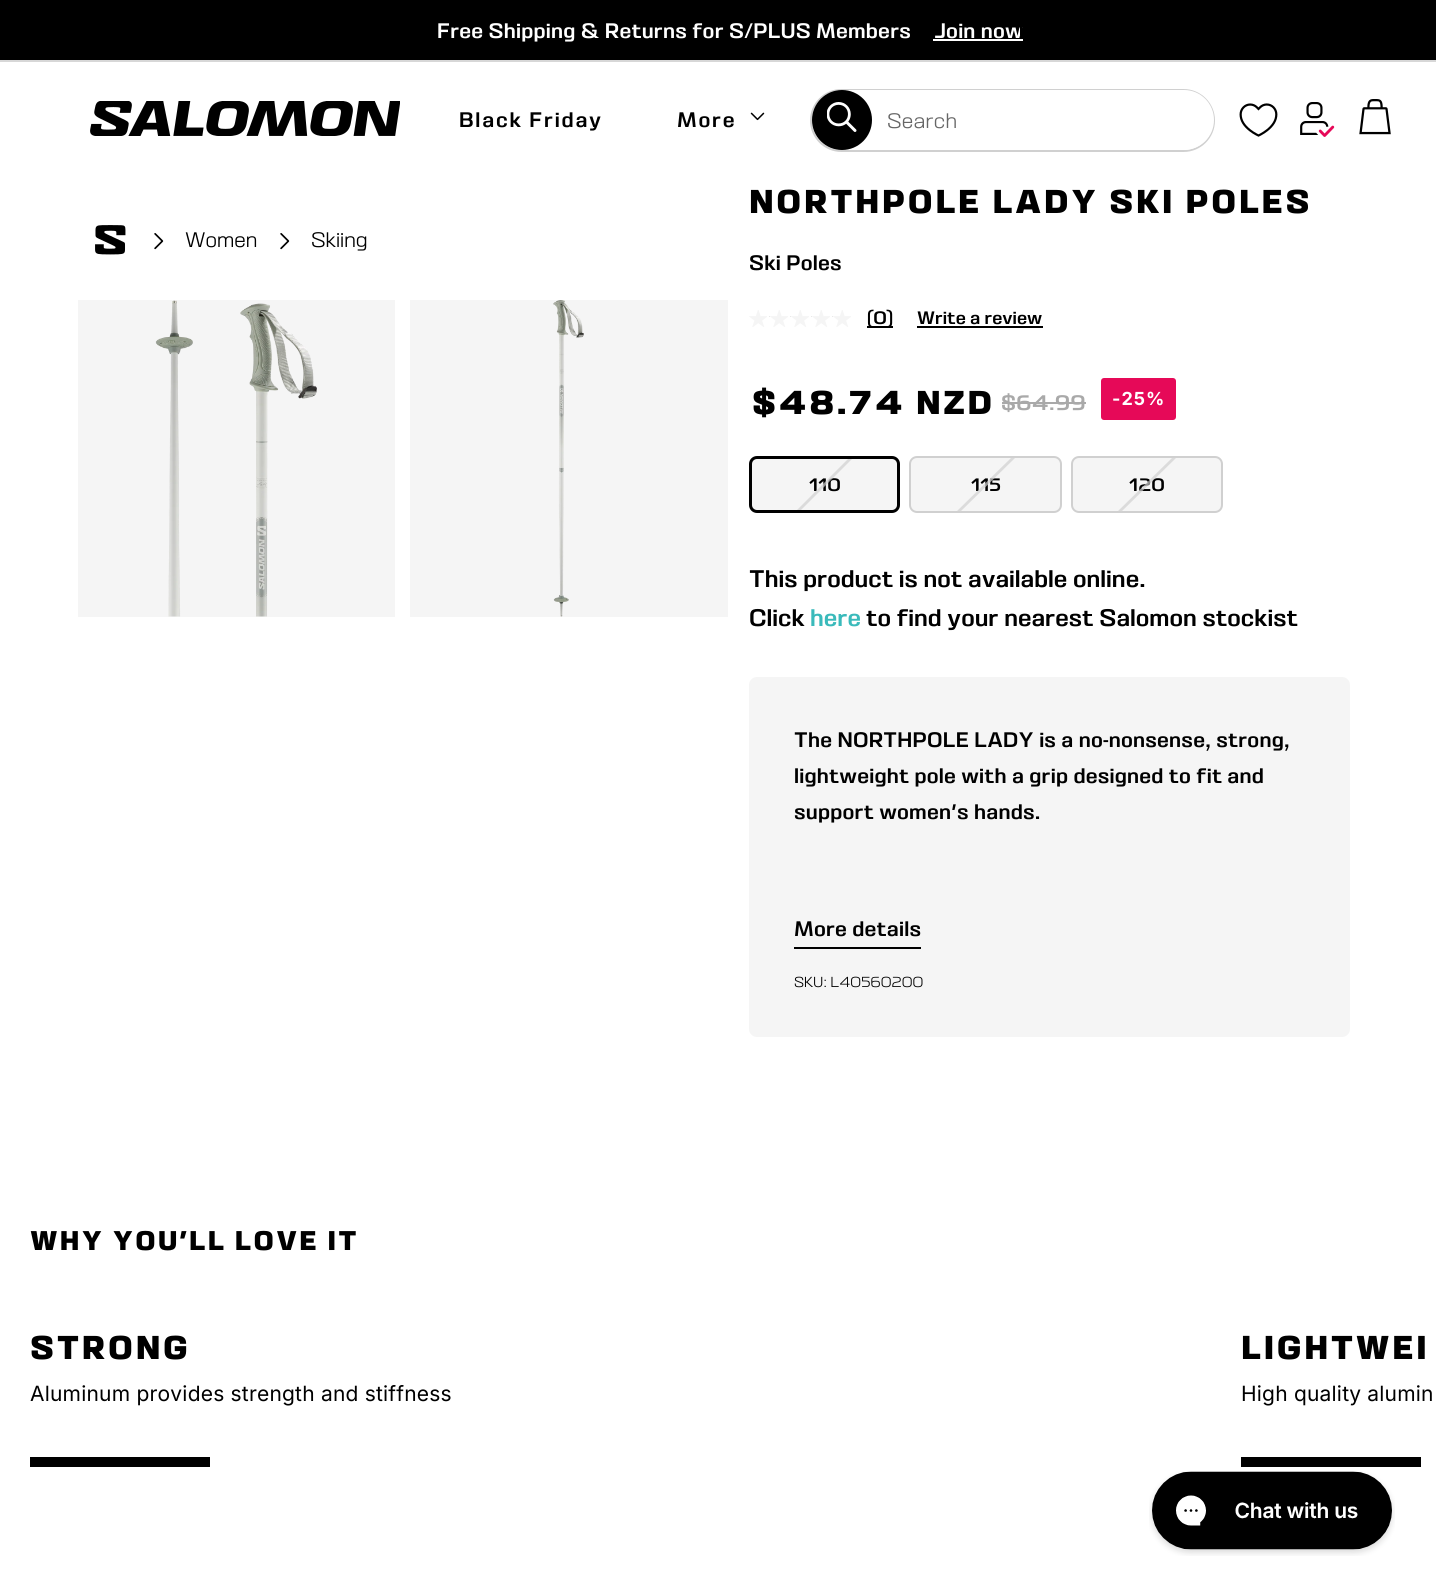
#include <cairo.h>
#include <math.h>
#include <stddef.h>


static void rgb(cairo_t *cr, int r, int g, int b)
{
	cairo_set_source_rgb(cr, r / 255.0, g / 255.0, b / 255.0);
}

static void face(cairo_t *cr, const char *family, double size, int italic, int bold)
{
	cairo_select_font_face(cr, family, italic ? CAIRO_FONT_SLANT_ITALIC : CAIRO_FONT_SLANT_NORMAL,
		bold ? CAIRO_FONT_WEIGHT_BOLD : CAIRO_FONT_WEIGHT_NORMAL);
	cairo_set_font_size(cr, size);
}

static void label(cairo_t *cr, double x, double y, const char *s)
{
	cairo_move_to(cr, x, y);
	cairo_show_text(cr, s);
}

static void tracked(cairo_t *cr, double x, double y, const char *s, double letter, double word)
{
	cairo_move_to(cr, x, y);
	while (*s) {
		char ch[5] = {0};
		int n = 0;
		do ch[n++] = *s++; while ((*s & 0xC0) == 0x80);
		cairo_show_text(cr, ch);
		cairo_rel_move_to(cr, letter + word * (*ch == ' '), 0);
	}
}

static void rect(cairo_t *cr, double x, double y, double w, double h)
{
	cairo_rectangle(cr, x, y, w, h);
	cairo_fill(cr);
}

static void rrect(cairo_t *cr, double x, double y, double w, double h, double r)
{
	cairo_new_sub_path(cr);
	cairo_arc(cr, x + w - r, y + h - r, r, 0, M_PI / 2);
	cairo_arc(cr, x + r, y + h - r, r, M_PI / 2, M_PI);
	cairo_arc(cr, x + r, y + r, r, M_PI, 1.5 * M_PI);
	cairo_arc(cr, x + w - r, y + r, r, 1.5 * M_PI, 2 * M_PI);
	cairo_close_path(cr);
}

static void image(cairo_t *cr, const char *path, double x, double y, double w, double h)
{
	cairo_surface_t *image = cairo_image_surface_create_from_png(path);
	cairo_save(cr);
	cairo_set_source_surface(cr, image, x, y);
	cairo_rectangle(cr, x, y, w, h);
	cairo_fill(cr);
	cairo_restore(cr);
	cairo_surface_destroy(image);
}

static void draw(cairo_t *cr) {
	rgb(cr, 255, 255, 255);
	cairo_paint(cr);
	rgb(cr, 215, 215, 215);
	rect(cr, 0, 60, 1436, 2);
	rgb(cr, 0, 0, 0);
	rect(cr, 0, 0, 1436, 60);
	face(cr, "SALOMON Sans", 21, 0, 0);
	rgb(cr, 255, 255, 255);
	tracked(cr, 437, 38, "Free Shipping & Returns for S/PLUS Members", 0.2, 0);
	tracked(cr, 934, 38, "Join now", 0.2, 0);
	rect(cr, 933, 39, 90, 2);
	rgb(cr, 0, 0, 0);
	rect(cr, 1020, 27, 2, 8);
	image(cr, "image0.png", 90, 101, 310, 35);
	tracked(cr, 459, 127, "Black Friday", 1.75, 0);
	tracked(cr, 677, 127, "More", 1.75, 0);
	image(cr, "image1.png", 750, 112, 15, 9);
	rrect(cr, 811, 90, 403, 61, 30.5);
	rgb(cr, 208, 208, 208);
	cairo_stroke(cr);
	rgb(cr, 255, 255, 255);
	rrect(cr, 812, 90, 402, 60, 30);
	cairo_fill(cr);
	rgb(cr, 0, 0, 0);
	cairo_arc(cr, 842, 120, 30, 0, 2 * M_PI);
	cairo_fill(cr);
	image(cr, "image2.png", 827, 102, 30, 30);
	face(cr, "SALOMON Sans Light", 21, 0, 0);
	rgb(cr, 102, 102, 102);
	tracked(cr, 887, 128, "Search", 0.2, 0);
	image(cr, "image3.png", 1239, 103, 39, 34);
	image(cr, "image4.png", 1300, 102, 35, 35);
	image(cr, "image5.png", 1359, 99, 32, 36);
	image(cr, "image6.png", 95, 225, 31, 30);
	image(cr, "image7.png", 154, 233, 10, 17);
	rgb(cr, 0, 0, 0);
	label(cr, 185, 247, "Women");
	image(cr, "image7.png", 280, 233, 10, 17);
	label(cr, 311, 247, "Skiing");
	face(cr, "SALOMON Sans", 33, 0, 1);
	tracked(cr, 749, 213, "NORTHPOLE LADY SKI POLES", 2.6, 0);
	face(cr, "SALOMON Sans", 21, 0, 0);
	tracked(cr, 749, 270, "Ski Poles", 0.2, 0);
	image(cr, "image8.png", 749, 310, 18, 17);
	image(cr, "image9.png", 769, 310, 19, 17);
	image(cr, "image9.png", 790, 310, 19, 17);
	image(cr, "image9.png", 811, 310, 19, 17);
	image(cr, "image9.png", 832, 310, 19, 17);
	rect(cr, 867, 326, 26, 2);
	face(cr, "SALOMON Sans", 18, 0, 0);
	label(cr, 867, 324, "(0)");
	label(cr, 917, 324, "Write a review");
	rect(cr, 917, 326, 126, 2);
	face(cr, "SALOMON Sans", 33, 0, 1);
	tracked(cr, 752, 414, "$48.74 NZD", 2.6, 0);
	face(cr, "SALOMON Sans", 21, 0, 0);
	rgb(cr, 169, 169, 169);
	tracked(cr, 1001, 410, "$64.99", 0.2, 0);
	rect(cr, 1002, 402, 84, 2);
	rgb(cr, 230, 9, 88);
	rrect(cr, 1101, 378, 75, 42, 3);
	cairo_fill(cr);
	face(cr, "Inter", 18, 0, 1);
	rgb(cr, 255, 255, 255);
	tracked(cr, 1112, 405, "-25%", 1, 0);
	rgb(cr, 245, 245, 245);
	rrect(cr, 750.5, 457.5, 148, 54, 6.5);
	cairo_fill_preserve(cr);
	rgb(cr, 0, 0, 0);
	cairo_set_line_width(cr, 3);
	cairo_stroke(cr);
	face(cr, "SALOMON Sans", 18, 0, 0);
	label(cr, 809, 491, "110");
	cairo_set_source_rgba(cr, 0.816, 0.816, 0.816, 0.7);
	cairo_new_path(cr);
	cairo_move_to(cr, 852, 459);
	cairo_line_to(cr, 801, 510);
	cairo_line_to(cr, 797, 510);
	cairo_line_to(cr, 848, 459);
	cairo_close_path(cr);
	cairo_fill(cr);
	rgb(cr, 245, 245, 245);
	rrect(cr, 910, 457, 151, 55, 7);
	cairo_fill_preserve(cr);
	rgb(cr, 208, 208, 208);
	cairo_set_line_width(cr, 2);
	cairo_stroke(cr);
	rgb(cr, 0, 0, 0);
	label(cr, 971, 491, "115");
	cairo_set_source_rgba(cr, 0.816, 0.816, 0.816, 0.7);
	cairo_new_path(cr);
	cairo_move_to(cr, 1015, 458);
	cairo_line_to(cr, 960, 512);
	cairo_line_to(cr, 956, 512);
	cairo_line_to(cr, 1011, 458);
	cairo_close_path(cr);
	cairo_fill(cr);
	rgb(cr, 245, 245, 245);
	rrect(cr, 1072, 457, 150, 55, 7);
	cairo_fill_preserve(cr);
	rgb(cr, 208, 208, 208);
	cairo_stroke(cr);
	rgb(cr, 0, 0, 0);
	label(cr, 1129, 491, "120");
	cairo_set_source_rgba(cr, 0.816, 0.816, 0.816, 0.7);
	cairo_new_path(cr);
	cairo_move_to(cr, 1176, 458);
	cairo_line_to(cr, 1121, 512);
	cairo_line_to(cr, 1117, 512);
	cairo_line_to(cr, 1172, 458);
	cairo_close_path(cr);
	cairo_fill(cr);
	face(cr, "SALOMON Sans", 24, 0, 0);
	rgb(cr, 0, 0, 0);
	label(cr, 749, 587, "This product is not available online.");
	label(cr, 749, 626, "Click");
	rgb(cr, 58, 186, 187);
	label(cr, 810, 626, "here");
	rgb(cr, 0, 0, 0);
	label(cr, 866, 626, "to find your nearest Salomon stockist");
	rgb(cr, 245, 245, 245);
	rrect(cr, 749, 677, 601, 360, 8);
	cairo_fill(cr);
	face(cr, "SALOMON Sans", 21, 0, 0);
	rgb(cr, 0, 0, 0);
	tracked(cr, 794, 747, "The NORTHPOLE LADY is a no-nonsense, strong,", 0.2, 0);
	tracked(cr, 794, 783, "lightweight pole with a grip designed to fit and", 0.2, 0);
	tracked(cr, 794, 819, "support women's hands.", 0.2, 0);
	rect(cr, 794, 947, 127, 2);
	tracked(cr, 794, 936, "More details", 0.2, 0);
	face(cr, "SALOMON Sans Light", 14.5, 0, 0);
	label(cr, 794, 987, "SKU: L40560200");
	rgb(cr, 245, 245, 245);
	rect(cr, 78, 300, 317, 317);
	image(cr, "image10.png", 155, 300, 162, 317);
	rect(cr, 410, 300, 318, 317);
	image(cr, "image11.png", 553, 300, 31, 317);
	face(cr, "SALOMON Sans", 27, 0, 1);
	rgb(cr, 0, 0, 0);
	tracked(cr, 30, 1250, "WHY YOU'LL LOVE IT", 2.2, 0);
	face(cr, "SALOMON Sans", 33, 0, 1);
	tracked(cr, 30, 1359, "STRONG", 2.6, 0);
	face(cr, "Inter", 21, 0, 0);
	tracked(cr, 30, 1401, "Aluminum provides strength and stiffness", 0.2, 0);
	rect(cr, 30, 1457, 180, 10);
	face(cr, "SALOMON Sans", 33, 0, 1);
	tracked(cr, 1241, 1359, "LIGHTWEI", 2.6, 0);
	face(cr, "Inter", 21, 0, 0);
	tracked(cr, 1241, 1401, "High quality alumin", 0.2, 0);
	rect(cr, 1241, 1457, 180, 10);
	image(cr, "image12.png", 1149, 1471, 246, 85);
}

int main(void) {
	cairo_surface_t *surface = cairo_image_surface_create(CAIRO_FORMAT_RGB24, 1436, 1589);
	cairo_t *cr = cairo_create(surface);
	cairo_font_options_t *options = cairo_font_options_create();
	cairo_font_options_set_hint_metrics(options, CAIRO_HINT_METRICS_OFF);
	cairo_font_options_set_hint_style(options, CAIRO_HINT_STYLE_NONE);
	cairo_set_font_options(cr, options);
	cairo_set_miter_limit(cr, 4);
	draw(cr);
	cairo_surface_write_to_png(surface, "render.png");
	cairo_font_options_destroy(options);
	cairo_destroy(cr);
	cairo_surface_destroy(surface);
	return 0;
}
